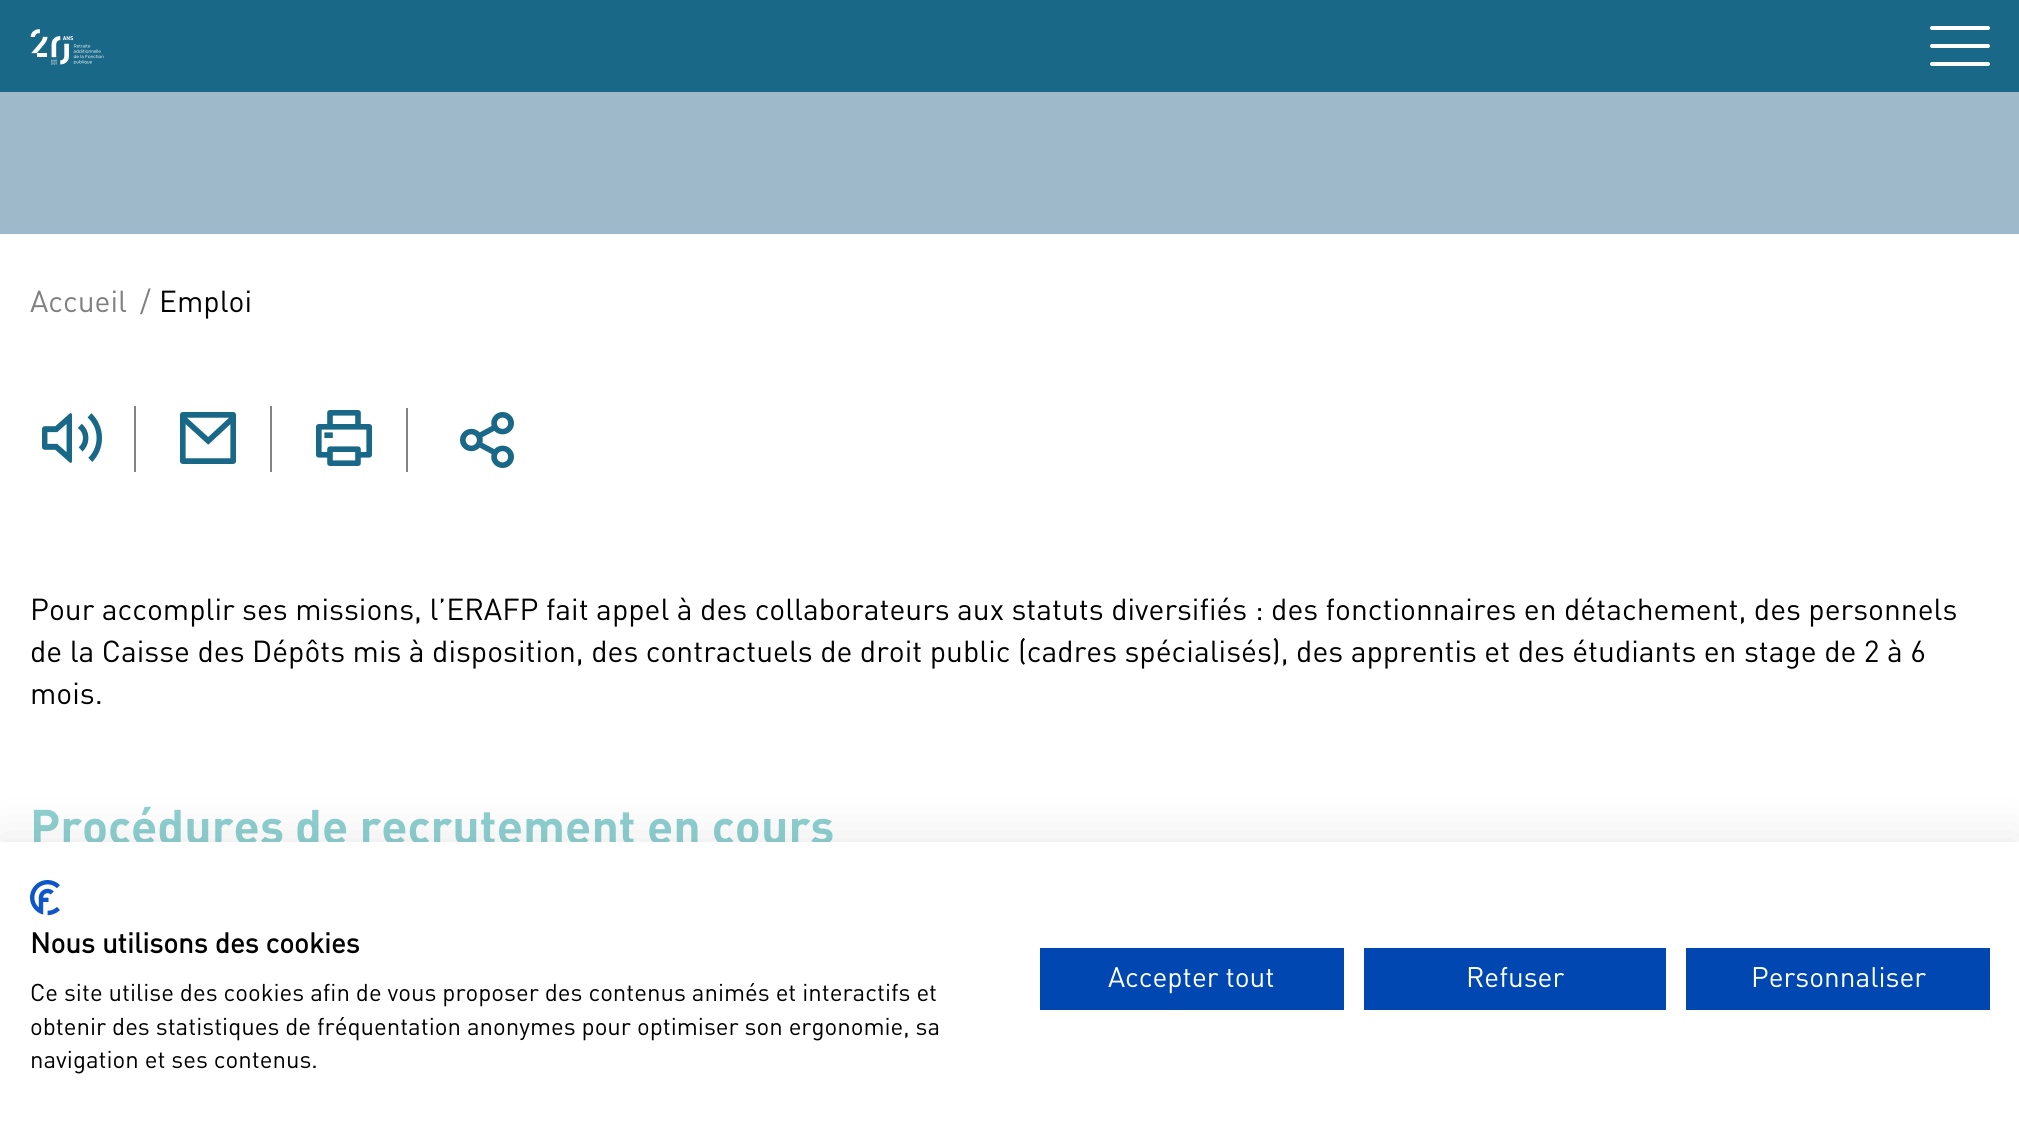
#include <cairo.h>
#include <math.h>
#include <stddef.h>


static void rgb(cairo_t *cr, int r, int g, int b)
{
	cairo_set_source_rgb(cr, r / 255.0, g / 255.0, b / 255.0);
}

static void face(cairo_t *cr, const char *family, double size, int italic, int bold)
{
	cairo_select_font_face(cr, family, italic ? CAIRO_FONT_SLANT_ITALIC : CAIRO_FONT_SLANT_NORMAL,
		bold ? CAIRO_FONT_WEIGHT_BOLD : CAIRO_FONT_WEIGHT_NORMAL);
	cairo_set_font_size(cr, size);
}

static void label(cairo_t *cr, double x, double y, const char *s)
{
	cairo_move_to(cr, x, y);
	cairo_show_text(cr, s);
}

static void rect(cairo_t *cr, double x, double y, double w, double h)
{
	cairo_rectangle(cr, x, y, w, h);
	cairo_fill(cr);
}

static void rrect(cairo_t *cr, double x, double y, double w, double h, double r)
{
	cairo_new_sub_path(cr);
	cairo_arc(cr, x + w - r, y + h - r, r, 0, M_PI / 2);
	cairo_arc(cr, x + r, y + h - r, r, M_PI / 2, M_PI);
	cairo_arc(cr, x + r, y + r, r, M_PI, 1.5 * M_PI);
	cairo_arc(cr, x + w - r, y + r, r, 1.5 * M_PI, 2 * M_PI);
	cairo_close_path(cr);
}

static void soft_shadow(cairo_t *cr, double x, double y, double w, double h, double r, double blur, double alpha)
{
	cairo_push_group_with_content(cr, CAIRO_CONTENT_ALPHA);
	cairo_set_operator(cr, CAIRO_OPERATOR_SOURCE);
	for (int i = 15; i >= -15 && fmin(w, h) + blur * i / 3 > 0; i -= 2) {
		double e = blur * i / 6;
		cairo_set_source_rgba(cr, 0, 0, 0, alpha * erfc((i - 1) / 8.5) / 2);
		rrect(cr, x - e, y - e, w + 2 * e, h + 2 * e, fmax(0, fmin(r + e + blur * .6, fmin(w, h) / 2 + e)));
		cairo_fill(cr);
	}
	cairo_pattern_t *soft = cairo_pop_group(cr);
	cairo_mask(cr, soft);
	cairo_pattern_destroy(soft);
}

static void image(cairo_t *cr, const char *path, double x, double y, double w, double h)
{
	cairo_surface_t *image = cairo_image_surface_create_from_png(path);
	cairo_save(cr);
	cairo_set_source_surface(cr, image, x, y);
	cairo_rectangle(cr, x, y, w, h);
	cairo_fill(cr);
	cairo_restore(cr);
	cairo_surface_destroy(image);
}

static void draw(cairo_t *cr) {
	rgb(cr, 255, 255, 255);
	cairo_paint(cr);
	rgb(cr, 26, 104, 135);
	rect(cr, 0, 0, 2019, 92);
	image(cr, "image0.png", 30, 29, 74, 36);
	rgb(cr, 255, 255, 255);
	rrect(cr, 1930, 26, 60, 4, 2);
	cairo_fill(cr);
	rrect(cr, 1930, 44, 60, 4, 2);
	cairo_fill(cr);
	rrect(cr, 1930, 62, 60, 4, 2);
	cairo_fill(cr);
	rgb(cr, 158, 185, 202);
	rect(cr, 0, 92, 2019, 142);
	face(cr, "DIN", 30, 0, 0);
	rgb(cr, 129, 128, 128);
	label(cr, 30, 312, "Accueil");
	label(cr, 140, 312, "/");
	rgb(cr, 0, 0, 0);
	label(cr, 159, 312, "Emploi");
	image(cr, "image1.png", 42, 413, 60, 50);
	rgb(cr, 132, 132, 132);
	rect(cr, 134, 406, 2, 66);
	image(cr, "image2.png", 180, 412, 56, 52);
	rect(cr, 270, 406, 2, 66);
	image(cr, "image3.png", 316, 410, 56, 56);
	rect(cr, 406, 408, 2, 64);
	image(cr, "image4.png", 460, 412, 54, 56);
	rgb(cr, 0, 0, 0);
	label(cr, 30, 620, "Pour accomplir ses missions, l’ERAFP fait appel à des collaborateurs aux statuts diversifiés : des fonctionnaires en détachement, des personnels");
	label(cr, 30, 662, "de la Caisse des Dépôts mis à disposition, des contractuels de droit public (cadres spécialisés), des apprentis et des étudiants en stage de 2 à 6");
	label(cr, 30, 704, "mois.");
	face(cr, "DIN", 48, 0, 1);
	rgb(cr, 142, 207, 208);
	label(cr, 30, 844, "Procédures de recrutement en cours");
	rgb(cr, 0, 0, 0);
	soft_shadow(cr, 0, 842, 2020, 292, 0, 24, 0.1);
	rgb(cr, 255, 255, 255);
	rect(cr, 0, 842, 2019, 292);
	image(cr, "image5.png", 30, 880, 30, 36);
	face(cr, "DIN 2", 28, 0, 1);
	rgb(cr, 0, 0, 0);
	label(cr, 30, 953, "Nous utilisons des cookies");
	face(cr, "DIN", 24, 0, 0);
	label(cr, 30, 1001, "Ce site utilise des cookies afin de vous proposer des contenus animés et interactifs et");
	label(cr, 30, 1035, "obtenir des statistiques de fréquentation anonymes pour optimiser son ergonomie, sa");
	label(cr, 30, 1068, "navigation et ses contenus.");
	rgb(cr, 0, 71, 178);
	rect(cr, 1040, 948, 304, 62);
	face(cr, "DIN", 28, 0, 0);
	rgb(cr, 255, 255, 255);
	label(cr, 1108, 987, "Accepter tout");
	rgb(cr, 0, 71, 178);
	rect(cr, 1364, 948, 302, 62);
	rgb(cr, 255, 255, 255);
	label(cr, 1466, 987, "Refuser");
	rgb(cr, 0, 71, 178);
	rect(cr, 1686, 948, 304, 62);
	rgb(cr, 255, 255, 255);
	label(cr, 1751, 987, "Personnaliser");
}

int main(void) {
	cairo_surface_t *surface = cairo_image_surface_create(CAIRO_FORMAT_RGB24, 2019, 1134);
	cairo_t *cr = cairo_create(surface);
	cairo_font_options_t *options = cairo_font_options_create();
	cairo_font_options_set_hint_metrics(options, CAIRO_HINT_METRICS_OFF);
	cairo_font_options_set_hint_style(options, CAIRO_HINT_STYLE_NONE);
	cairo_set_font_options(cr, options);
	cairo_set_miter_limit(cr, 4);
	draw(cr);
	cairo_surface_write_to_png(surface, "render.png");
	cairo_font_options_destroy(options);
	cairo_destroy(cr);
	cairo_surface_destroy(surface);
	return 0;
}
